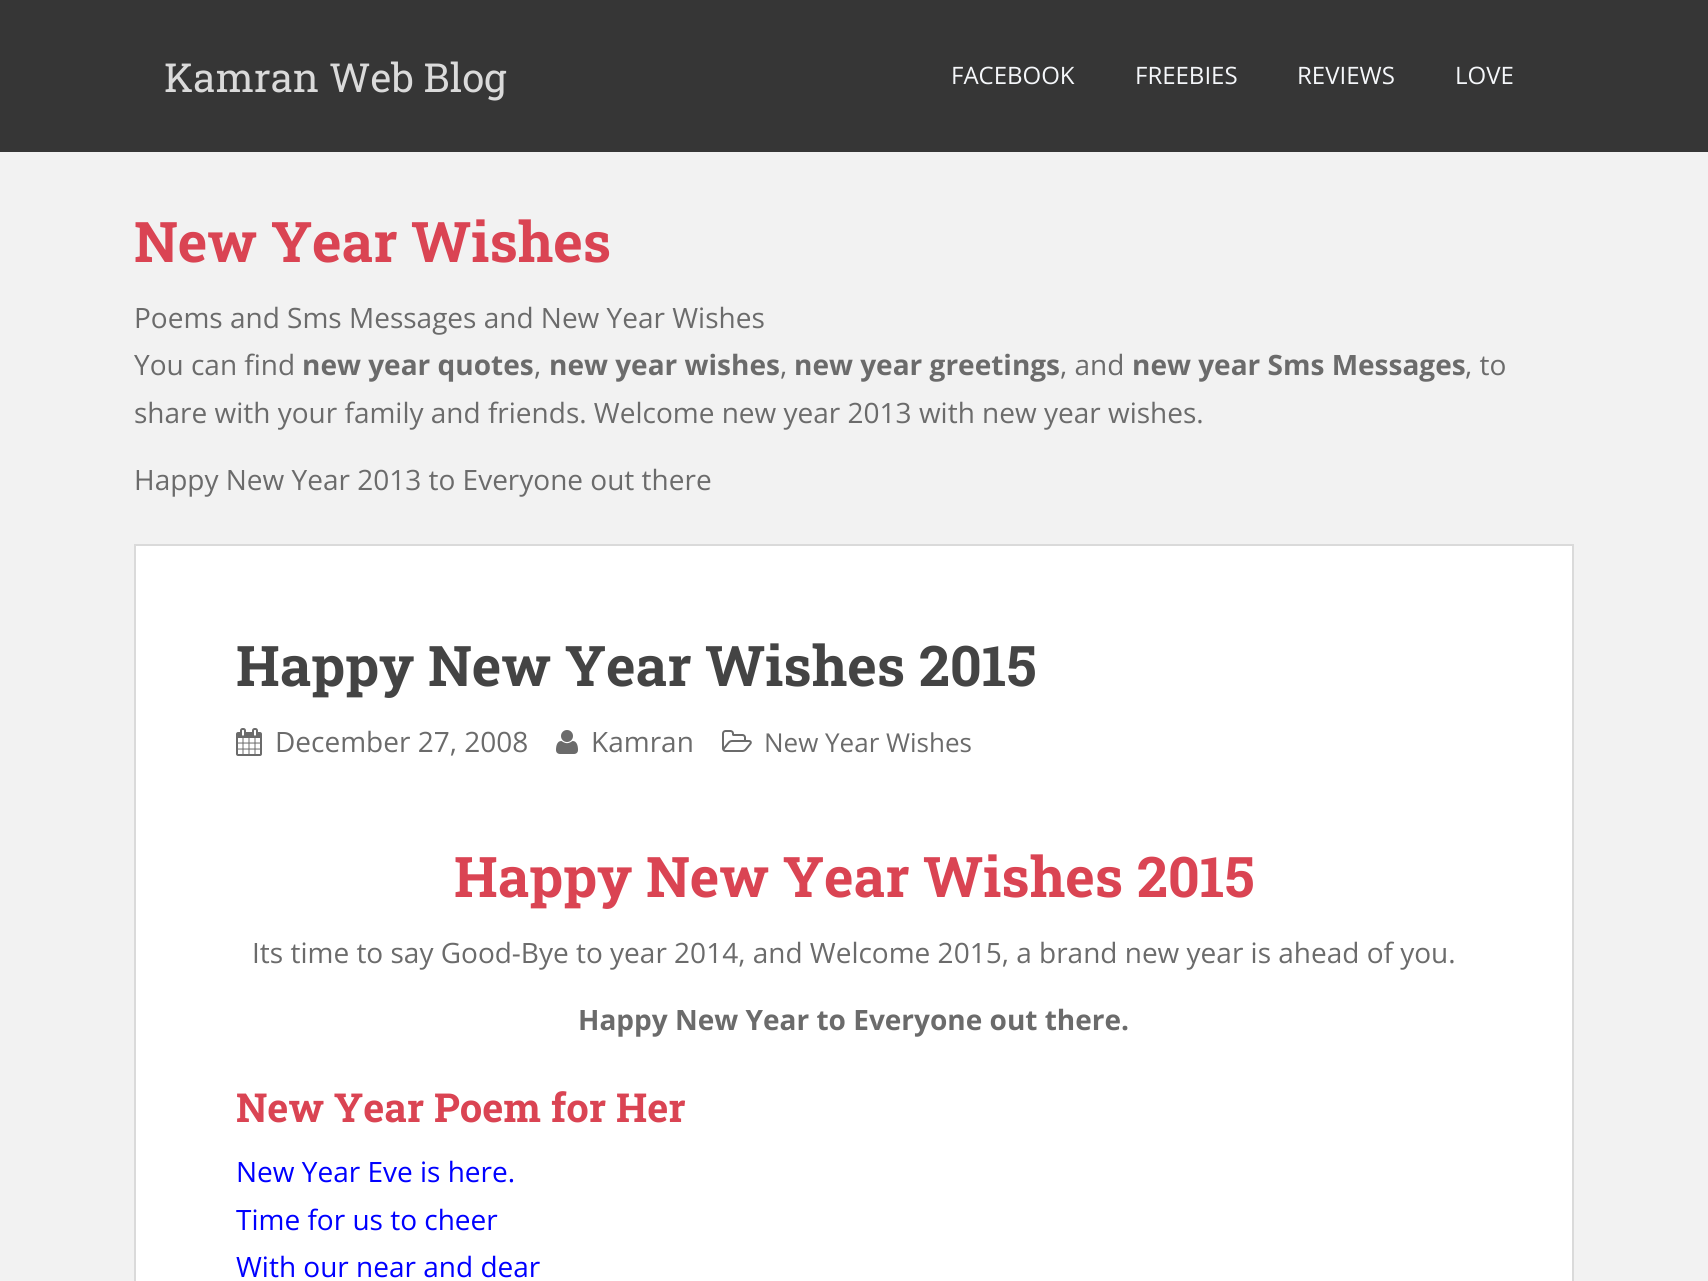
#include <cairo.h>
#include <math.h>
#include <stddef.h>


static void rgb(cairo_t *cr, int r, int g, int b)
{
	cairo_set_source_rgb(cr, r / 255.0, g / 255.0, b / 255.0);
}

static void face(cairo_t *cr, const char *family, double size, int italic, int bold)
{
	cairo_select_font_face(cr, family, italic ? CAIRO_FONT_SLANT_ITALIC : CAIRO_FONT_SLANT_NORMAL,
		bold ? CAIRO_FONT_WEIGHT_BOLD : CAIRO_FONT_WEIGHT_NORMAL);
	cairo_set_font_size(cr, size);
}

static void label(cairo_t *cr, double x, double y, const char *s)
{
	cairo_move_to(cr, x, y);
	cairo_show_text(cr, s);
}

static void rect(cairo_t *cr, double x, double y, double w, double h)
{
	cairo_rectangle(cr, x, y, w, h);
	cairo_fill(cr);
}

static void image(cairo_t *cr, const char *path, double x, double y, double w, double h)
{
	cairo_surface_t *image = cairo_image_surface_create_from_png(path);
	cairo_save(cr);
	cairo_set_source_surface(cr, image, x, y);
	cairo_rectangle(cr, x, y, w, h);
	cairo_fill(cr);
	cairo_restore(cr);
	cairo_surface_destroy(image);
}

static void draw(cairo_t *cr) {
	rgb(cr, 242, 242, 242);
	cairo_paint(cr);
	rgb(cr, 54, 54, 54);
	rect(cr, 0, 0, 1708, 152);
	face(cr, "Roboto Slab", 40, 0, 0);
	rgb(cr, 218, 218, 218);
	label(cr, 164, 92, "Kamran Web Blog");
	face(cr, "Open Sans", 24, 0, 0);
	rgb(cr, 245, 247, 250);
	label(cr, 951, 84, "FACEBOOK");
	label(cr, 1135, 84, "FREEBIES");
	label(cr, 1297, 84, "REVIEWS");
	label(cr, 1455, 84, "LOVE");
	face(cr, "Roboto Slab", 56, 0, 1);
	rgb(cr, 218, 68, 83);
	label(cr, 134, 262, "New Year Wishes");
	face(cr, "Open Sans", 28, 0, 0);
	rgb(cr, 107, 107, 107);
	label(cr, 134, 328, "Poems and Sms Messages and New Year Wishes");
	label(cr, 134, 375, "You can find");
	face(cr, "Open Sans", 28, 0, 1);
	label(cr, 302, 375, "new year quotes");
	face(cr, "Open Sans", 28, 0, 0);
	label(cr, 534, 375, ",");
	face(cr, "Open Sans", 28, 0, 1);
	label(cr, 549, 375, "new year wishes");
	face(cr, "Open Sans", 28, 0, 0);
	label(cr, 780, 375, ",");
	face(cr, "Open Sans", 28, 0, 1);
	label(cr, 794, 375, "new year greetings");
	face(cr, "Open Sans", 28, 0, 0);
	label(cr, 1060, 375, ", and");
	face(cr, "Open Sans", 28, 0, 1);
	label(cr, 1132, 375, "new year Sms Messages");
	face(cr, "Open Sans", 28, 0, 0);
	label(cr, 1465, 375, ", to");
	label(cr, 134, 423, "share with your family and friends. Welcome new year 2013 with new year wishes.");
	label(cr, 134, 490, "Happy New Year 2013 to Everyone out there");
	rgb(cr, 255, 255, 255);
	cairo_rectangle(cr, 135, 545, 1438, 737);
	cairo_fill_preserve(cr);
	rgb(cr, 218, 218, 218);
	cairo_stroke(cr);
	face(cr, "Roboto Slab", 56, 0, 1);
	rgb(cr, 68, 68, 68);
	label(cr, 236, 686, "Happy New Year Wishes 2015");
	image(cr, "image0.png", 236, 728, 26, 28);
	face(cr, "Open Sans", 28, 0, 0);
	rgb(cr, 107, 107, 107);
	label(cr, 275, 752, "December 27, 2008");
	image(cr, "image1.png", 556, 730, 22, 24);
	label(cr, 591, 752, "Kamran");
	image(cr, "image2.png", 722, 730, 30, 22);
	face(cr, "Open Sans", 26, 0, 0);
	label(cr, 764, 752, "New Year Wishes");
	face(cr, "Roboto Slab", 56, 0, 1);
	rgb(cr, 218, 68, 83);
	label(cr, 454, 897, "Happy New Year Wishes 2015");
	face(cr, "Open Sans", 28, 0, 0);
	rgb(cr, 107, 107, 107);
	label(cr, 252, 963, "Its time to say Good-Bye to year 2014, and Welcome 2015, a brand new year is ahead of you.");
	face(cr, "Open Sans", 28, 0, 1);
	label(cr, 578, 1030, "Happy New Year to Everyone out there.");
	face(cr, "Roboto Slab", 40, 0, 1);
	rgb(cr, 218, 68, 83);
	label(cr, 236, 1122, "New Year Poem for Her");
	face(cr, "Open Sans", 28, 0, 0);
	rgb(cr, 0, 0, 255);
	label(cr, 236, 1182, "New Year Eve is here.");
	label(cr, 236, 1230, "Time for us to cheer");
	label(cr, 236, 1277, "With our near and dear");
}

int main(void) {
	cairo_surface_t *surface = cairo_image_surface_create(CAIRO_FORMAT_RGB24, 1708, 1281);
	cairo_t *cr = cairo_create(surface);
	cairo_font_options_t *options = cairo_font_options_create();
	cairo_font_options_set_hint_metrics(options, CAIRO_HINT_METRICS_OFF);
	cairo_font_options_set_hint_style(options, CAIRO_HINT_STYLE_NONE);
	cairo_set_font_options(cr, options);
	cairo_set_miter_limit(cr, 4);
	draw(cr);
	cairo_surface_write_to_png(surface, "render.png");
	cairo_font_options_destroy(options);
	cairo_destroy(cr);
	cairo_surface_destroy(surface);
	return 0;
}
